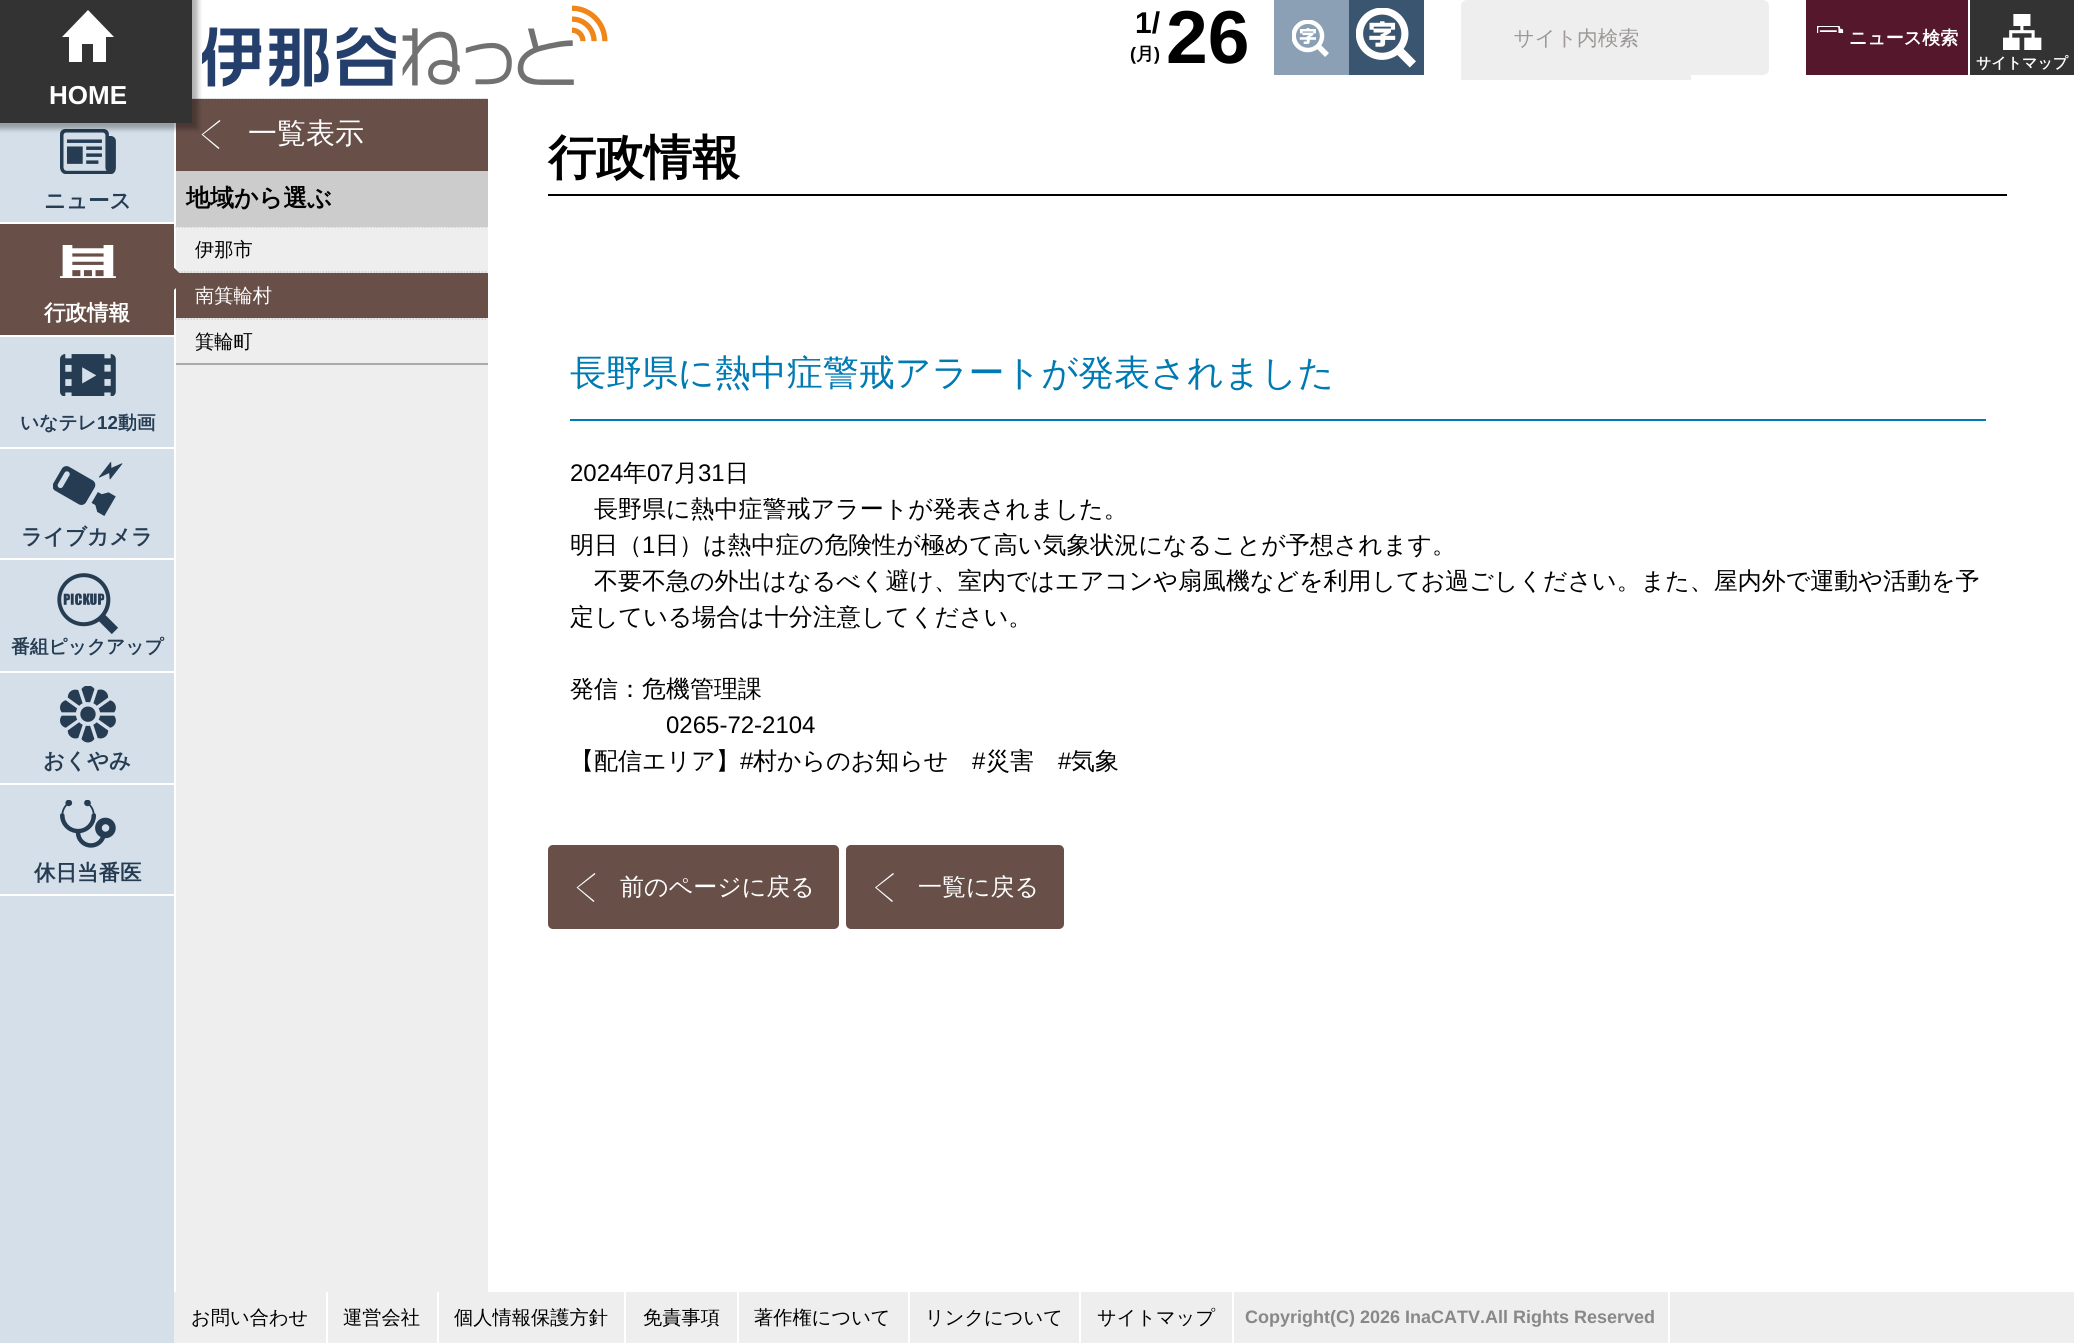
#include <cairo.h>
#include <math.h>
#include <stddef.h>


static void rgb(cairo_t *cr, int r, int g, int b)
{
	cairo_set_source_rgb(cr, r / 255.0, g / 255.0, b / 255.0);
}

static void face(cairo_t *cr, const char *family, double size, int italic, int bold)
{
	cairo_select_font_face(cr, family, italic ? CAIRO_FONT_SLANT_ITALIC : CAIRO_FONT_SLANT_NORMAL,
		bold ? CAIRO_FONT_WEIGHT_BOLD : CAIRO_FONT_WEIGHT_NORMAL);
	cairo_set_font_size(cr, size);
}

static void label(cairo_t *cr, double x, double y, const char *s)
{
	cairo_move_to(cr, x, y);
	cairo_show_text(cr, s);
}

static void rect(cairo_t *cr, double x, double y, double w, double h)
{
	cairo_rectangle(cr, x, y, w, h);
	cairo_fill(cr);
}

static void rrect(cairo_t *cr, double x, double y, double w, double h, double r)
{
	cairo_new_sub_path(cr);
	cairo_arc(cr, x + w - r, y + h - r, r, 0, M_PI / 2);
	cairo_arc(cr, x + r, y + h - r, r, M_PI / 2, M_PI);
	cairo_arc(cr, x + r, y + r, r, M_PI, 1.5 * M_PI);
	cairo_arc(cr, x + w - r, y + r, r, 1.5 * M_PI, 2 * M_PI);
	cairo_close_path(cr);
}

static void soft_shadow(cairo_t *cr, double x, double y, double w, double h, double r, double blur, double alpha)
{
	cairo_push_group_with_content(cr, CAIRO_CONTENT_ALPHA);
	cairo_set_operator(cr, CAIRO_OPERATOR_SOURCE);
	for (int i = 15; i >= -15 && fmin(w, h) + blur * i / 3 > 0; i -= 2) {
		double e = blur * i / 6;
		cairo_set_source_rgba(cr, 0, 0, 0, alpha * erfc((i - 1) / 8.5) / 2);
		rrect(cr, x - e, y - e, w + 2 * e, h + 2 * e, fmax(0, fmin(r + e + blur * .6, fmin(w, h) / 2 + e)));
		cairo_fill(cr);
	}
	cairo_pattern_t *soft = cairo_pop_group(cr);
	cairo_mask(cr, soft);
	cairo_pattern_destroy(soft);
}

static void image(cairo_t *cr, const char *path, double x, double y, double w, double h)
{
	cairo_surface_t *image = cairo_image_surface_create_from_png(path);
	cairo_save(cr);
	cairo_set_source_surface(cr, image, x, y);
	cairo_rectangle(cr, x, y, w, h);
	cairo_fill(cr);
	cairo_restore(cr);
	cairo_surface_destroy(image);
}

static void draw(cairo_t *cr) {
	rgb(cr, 255, 255, 255);
	cairo_paint(cr);
	image(cr, "image0.png", 202, 5, 406, 82);
	face(cr, "Liberation Sans", 30, 0, 1);
	rgb(cr, 0, 0, 0);
	label(cr, 1135, 33, "1/");
	face(cr, "Liberation Sans", 75, 0, 1);
	label(cr, 1166, 63, "26");
	face(cr, "Liberation Sans", 18, 0, 1);
	label(cr, 1130, 60, "(");
	face(cr, "WenQuanYi Zen Hei", 18, 0, 1);
	label(cr, 1136, 60, "月");
	face(cr, "Liberation Sans", 18, 0, 1);
	label(cr, 1154, 60, ")");
	rgb(cr, 139, 160, 180);
	rect(cr, 1274, 0, 75, 75);
	image(cr, "image1.png", 1292, 20, 37, 37);
	rgb(cr, 58, 85, 112);
	rect(cr, 1349, 0, 75, 75);
	image(cr, "image2.png", 1356, 8, 60, 60);
	rgb(cr, 238, 238, 238);
	rrect(cr, 1461, 0, 308, 75, 6);
	cairo_fill(cr);
	rect(cr, 1461, 70, 230, 10);
	image(cr, "image3.png", 1514, 28, 124, 20);
	rgb(cr, 85, 23, 43);
	rect(cr, 1806, 0, 162, 75);
	image(cr, "image4.png", 1817, 26, 27, 7);
	face(cr, "WenQuanYi Zen Hei", 18, 0, 1);
	rgb(cr, 255, 255, 255);
	label(cr, 1849, 44, "ニュース検索");
	rgb(cr, 51, 51, 51);
	rect(cr, 1970, 0, 104, 75);
	image(cr, "image5.png", 2003, 14, 39, 36);
	face(cr, "WenQuanYi Zen Hei", 15, 0, 1);
	rgb(cr, 255, 255, 255);
	label(cr, 1976, 68, "サイトマップ");
	rgb(cr, 212, 223, 233);
	rect(cr, 0, 123, 174, 1220);
	image(cr, "image6.png", 60, 129, 56, 45);
	rgb(cr, 238, 238, 238);
	rect(cr, 176, 98, 312, 1194);
	cairo_save(cr);
	cairo_rectangle(cr, 176, 98, 312, 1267);
	cairo_clip(cr);
	cairo_new_path(cr);
	cairo_move_to(cr, 175.5, 98);
	cairo_line_to(cr, 487.5, 98);
	rgb(cr, 204, 204, 204);
	cairo_set_line_width(cr, 1.5);
	cairo_set_dash(cr, (double[]){1.5, 1.5}, 2, 0);
	cairo_stroke(cr);
	cairo_restore(cr);
	rgb(cr, 104, 79, 72);
	rect(cr, 176, 99, 312, 72);
	rgb(cr, 255, 255, 255);
	cairo_new_path(cr);
	cairo_move_to(cr, 220.5, 121);
	cairo_line_to(cr, 203, 134.5);
	cairo_line_to(cr, 219.5, 148);
	cairo_line_to(cr, 218.5, 149);
	cairo_line_to(cr, 201.5, 134.5);
	cairo_line_to(cr, 219.5, 120);
	cairo_close_path(cr);
	cairo_fill(cr);
	rgb(cr, 0, 0, 0);
	soft_shadow(cr, -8, -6, 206, 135, 0, 2.5, 0.3);
	rgb(cr, 51, 51, 51);
	rect(cr, 0, 0, 192, 123);
	rgb(cr, 255, 255, 255);
	cairo_set_fill_rule(cr, CAIRO_FILL_RULE_EVEN_ODD);
	cairo_new_path(cr);
	cairo_move_to(cr, 88, 10);
	cairo_line_to(cr, 62, 37);
	cairo_line_to(cr, 69, 37);
	cairo_line_to(cr, 69, 62);
	cairo_line_to(cr, 82, 62);
	cairo_line_to(cr, 82, 44);
	cairo_line_to(cr, 93, 44);
	cairo_line_to(cr, 93, 62);
	cairo_line_to(cr, 106, 62);
	cairo_line_to(cr, 106, 37);
	cairo_line_to(cr, 114, 37);
	cairo_close_path(cr);
	cairo_fill(cr);
	face(cr, "Liberation Sans", 26, 0, 1);
	label(cr, 49, 104, "HOME");
	rect(cr, 0, 222, 174, 2);
	face(cr, "WenQuanYi Zen Hei", 21.5, 0, 1);
	rgb(cr, 37, 60, 83);
	label(cr, 44, 208, "ニュース");
	rgb(cr, 104, 79, 72);
	rect(cr, 0, 224, 174, 111);
	image(cr, "image7.png", 60, 245, 56, 33);
	rgb(cr, 255, 255, 255);
	rect(cr, 0, 335, 174, 2);
	cairo_new_path(cr);
	cairo_move_to(cr, 175.5, 272);
	cairo_line_to(cr, 487.5, 272);
	rgb(cr, 204, 204, 204);
	cairo_set_line_width(cr, 1.5);
	cairo_set_dash(cr, (double[]){1.5, 1.5}, 2, 0);
	cairo_stroke(cr);
	rgb(cr, 104, 79, 72);
	rect(cr, 176, 273, 312, 45);
	cairo_set_fill_rule(cr, CAIRO_FILL_RULE_WINDING);
	cairo_new_path(cr);
	cairo_move_to(cr, 156, 279);
	cairo_line_to(cr, 170.5, 264);
	cairo_line_to(cr, 185, 279);
	cairo_line_to(cr, 170.5, 293.5);
	cairo_close_path(cr);
	cairo_fill(cr);
	rgb(cr, 255, 255, 255);
	label(cr, 44, 320, "行政情報");
	image(cr, "image8.png", 60, 354, 56, 42);
	rect(cr, 0, 447, 174, 2);
	face(cr, "WenQuanYi Zen Hei", 18.75, 0, 1);
	rgb(cr, 37, 60, 83);
	label(cr, 20, 429, "いなテレ");
	face(cr, "Liberation Sans", 18.75, 0, 1);
	label(cr, 97, 429, "12");
	face(cr, "WenQuanYi Zen Hei", 18.75, 0, 1);
	label(cr, 118, 429, "動画");
	image(cr, "image9.png", 53, 462, 70, 54);
	rgb(cr, 255, 255, 255);
	rect(cr, 0, 558, 174, 2);
	face(cr, "WenQuanYi Zen Hei", 21.5, 0, 1);
	rgb(cr, 37, 60, 83);
	label(cr, 21, 544, "ライブカメラ");
	image(cr, "image10.png", 57, 573, 61, 61);
	rgb(cr, 255, 255, 255);
	rect(cr, 0, 671, 174, 2);
	face(cr, "WenQuanYi Zen Hei", 18.75, 0, 1);
	rgb(cr, 37, 60, 83);
	label(cr, 11, 653, "番組ピックアップ");
	image(cr, "image11.png", 60, 686, 56, 57);
	rgb(cr, 255, 255, 255);
	rect(cr, 0, 783, 174, 2);
	face(cr, "WenQuanYi Zen Hei", 21.5, 0, 1);
	rgb(cr, 37, 60, 83);
	label(cr, 43, 768, "おくやみ");
	image(cr, "image12.png", 60, 800, 56, 48);
	rgb(cr, 255, 255, 255);
	rect(cr, 0, 894, 174, 2);
	rgb(cr, 37, 60, 83);
	label(cr, 34, 880, "休日当番医");
	rgb(cr, 170, 170, 170);
	rect(cr, 176, 363, 312, 2);
	face(cr, "WenQuanYi Zen Hei Medium", 29, 0, 0);
	rgb(cr, 255, 255, 255);
	label(cr, 248, 143, "一覧表示");
	rgb(cr, 204, 204, 204);
	rect(cr, 176, 171, 312, 56);
	face(cr, "WenQuanYi Zen Hei", 24, 0, 1);
	rgb(cr, 0, 0, 0);
	label(cr, 186, 206, "地域から選ぶ");
	cairo_new_path(cr);
	cairo_move_to(cr, 175.5, 227);
	cairo_line_to(cr, 487.5, 227);
	rgb(cr, 204, 204, 204);
	cairo_stroke(cr);
	face(cr, "WenQuanYi Zen Hei Medium", 19.25, 0, 0);
	rgb(cr, 0, 0, 0);
	label(cr, 195, 256, "伊那市");
	rgb(cr, 255, 255, 255);
	label(cr, 195, 302, "南箕輪村");
	cairo_new_path(cr);
	cairo_move_to(cr, 175.5, 319);
	cairo_line_to(cr, 487.5, 319);
	rgb(cr, 204, 204, 204);
	cairo_stroke(cr);
	rgb(cr, 0, 0, 0);
	label(cr, 195, 348, "箕輪町");
	rect(cr, 548, 194, 1459, 2);
	face(cr, "WenQuanYi Zen Hei", 48, 0, 1);
	label(cr, 548, 174, "行政情報");
	rgb(cr, 0, 122, 179);
	rect(cr, 570, 419, 1416, 2);
	face(cr, "WenQuanYi Zen Hei Medium", 36, 0, 0);
	label(cr, 570, 385, "長野県に熱中症警戒アラートが発表されました");
	face(cr, "Liberation Sans", 24, 0, 0);
	rgb(cr, 0, 0, 0);
	label(cr, 570, 481, "2024");
	face(cr, "WenQuanYi Zen Hei Medium", 24, 0, 0);
	label(cr, 623, 481, "年");
	face(cr, "Liberation Sans", 24, 0, 0);
	label(cr, 647, 481, "07");
	face(cr, "WenQuanYi Zen Hei Medium", 24, 0, 0);
	label(cr, 674, 481, "月");
	face(cr, "Liberation Sans", 24, 0, 0);
	label(cr, 698, 481, "31");
	face(cr, "WenQuanYi Zen Hei Medium", 24, 0, 0);
	label(cr, 725, 481, "日");
	label(cr, 594, 517, "長野県に熱中症警戒アラートが発表されました。");
	label(cr, 570, 553, "明日（");
	face(cr, "Liberation Sans", 24, 0, 0);
	label(cr, 642, 553, "1");
	face(cr, "WenQuanYi Zen Hei Medium", 24, 0, 0);
	label(cr, 655, 553, "日）は熱中症の危険性が極めて高い気象状況になることが予想されます。");
	label(cr, 594, 589, "不要不急の外出はなるべく避け、室内ではエアコンや扇風機などを利用してお過ごしください。また、屋内外で運動や活動を予");
	label(cr, 570, 625, "定している場合は十分注意してください。");
	label(cr, 570, 697, "発信：危機管理課");
	face(cr, "Liberation Sans", 24, 0, 0);
	label(cr, 666, 733, "0265-72-2104");
	face(cr, "WenQuanYi Zen Hei Medium", 24, 0, 0);
	label(cr, 570, 769, "【配信エリア】");
	face(cr, "Liberation Sans", 24, 0, 0);
	label(cr, 740, 769, "#");
	face(cr, "WenQuanYi Zen Hei Medium", 24, 0, 0);
	label(cr, 753, 769, "村からのお知らせ");
	face(cr, "Liberation Sans", 24, 0, 0);
	label(cr, 972, 769, "#");
	face(cr, "WenQuanYi Zen Hei Medium", 24, 0, 0);
	label(cr, 986, 769, "災害");
	face(cr, "Liberation Sans", 24, 0, 0);
	label(cr, 1058, 769, "#");
	face(cr, "WenQuanYi Zen Hei Medium", 24, 0, 0);
	label(cr, 1071, 769, "気象");
	rgb(cr, 104, 79, 72);
	rrect(cr, 548, 845, 291, 84, 5);
	cairo_fill(cr);
	rgb(cr, 255, 255, 255);
	cairo_new_path(cr);
	cairo_move_to(cr, 595.5, 874);
	cairo_line_to(cr, 578, 887.5);
	cairo_line_to(cr, 594.5, 901);
	cairo_line_to(cr, 593.5, 902);
	cairo_line_to(cr, 576.5, 887.5);
	cairo_line_to(cr, 594.5, 873);
	cairo_close_path(cr);
	cairo_fill(cr);
	label(cr, 620, 895, "前のページに戻る");
	rgb(cr, 104, 79, 72);
	rrect(cr, 846, 845, 218, 84, 5);
	cairo_fill(cr);
	rgb(cr, 255, 255, 255);
	cairo_new_path(cr);
	cairo_move_to(cr, 894, 874);
	cairo_line_to(cr, 876.5, 887.5);
	cairo_line_to(cr, 893, 901);
	cairo_line_to(cr, 892, 902);
	cairo_line_to(cr, 875, 887.5);
	cairo_line_to(cr, 893, 873);
	cairo_close_path(cr);
	cairo_fill(cr);
	label(cr, 918, 895, "一覧に戻る");
	rgb(cr, 238, 238, 238);
	rect(cr, 174, 1292, 1900, 51);
	rgb(cr, 255, 255, 255);
	rect(cr, 326, 1292, 2, 51);
	face(cr, "WenQuanYi Zen Hei Medium", 19.25, 0, 0);
	rgb(cr, 0, 0, 0);
	label(cr, 191, 1324, "お問い合わせ");
	rgb(cr, 255, 255, 255);
	rect(cr, 437, 1292, 2, 51);
	rgb(cr, 0, 0, 0);
	label(cr, 343, 1324, "運営会社");
	rgb(cr, 255, 255, 255);
	rect(cr, 624, 1292, 2, 51);
	rgb(cr, 0, 0, 0);
	label(cr, 454, 1324, "個人情報保護方針");
	rgb(cr, 255, 255, 255);
	rect(cr, 737, 1292, 2, 51);
	rgb(cr, 0, 0, 0);
	label(cr, 643, 1324, "免責事項");
	rgb(cr, 255, 255, 255);
	rect(cr, 908, 1292, 2, 51);
	rgb(cr, 0, 0, 0);
	label(cr, 754, 1324, "著作権について");
	rgb(cr, 255, 255, 255);
	rect(cr, 1079, 1292, 2, 51);
	rgb(cr, 0, 0, 0);
	label(cr, 925, 1324, "リンクについて");
	rgb(cr, 255, 255, 255);
	rect(cr, 1232, 1292, 2, 51);
	rgb(cr, 0, 0, 0);
	label(cr, 1097, 1324, "サイトマップ");
	rgb(cr, 255, 255, 255);
	rect(cr, 1668, 1292, 2, 51);
	face(cr, "Liberation Sans", 18, 0, 1);
	rgb(cr, 136, 136, 136);
	label(cr, 1245, 1323, "Copyright(C) 2026 InaCATV.All Rights Reserved");
}

int main(void) {
	cairo_surface_t *surface = cairo_image_surface_create(CAIRO_FORMAT_RGB24, 2074, 1343);
	cairo_t *cr = cairo_create(surface);
	cairo_font_options_t *options = cairo_font_options_create();
	cairo_font_options_set_hint_metrics(options, CAIRO_HINT_METRICS_OFF);
	cairo_font_options_set_hint_style(options, CAIRO_HINT_STYLE_NONE);
	cairo_set_font_options(cr, options);
	cairo_set_miter_limit(cr, 4);
	draw(cr);
	cairo_surface_write_to_png(surface, "render.png");
	cairo_font_options_destroy(options);
	cairo_destroy(cr);
	cairo_surface_destroy(surface);
	return 0;
}
